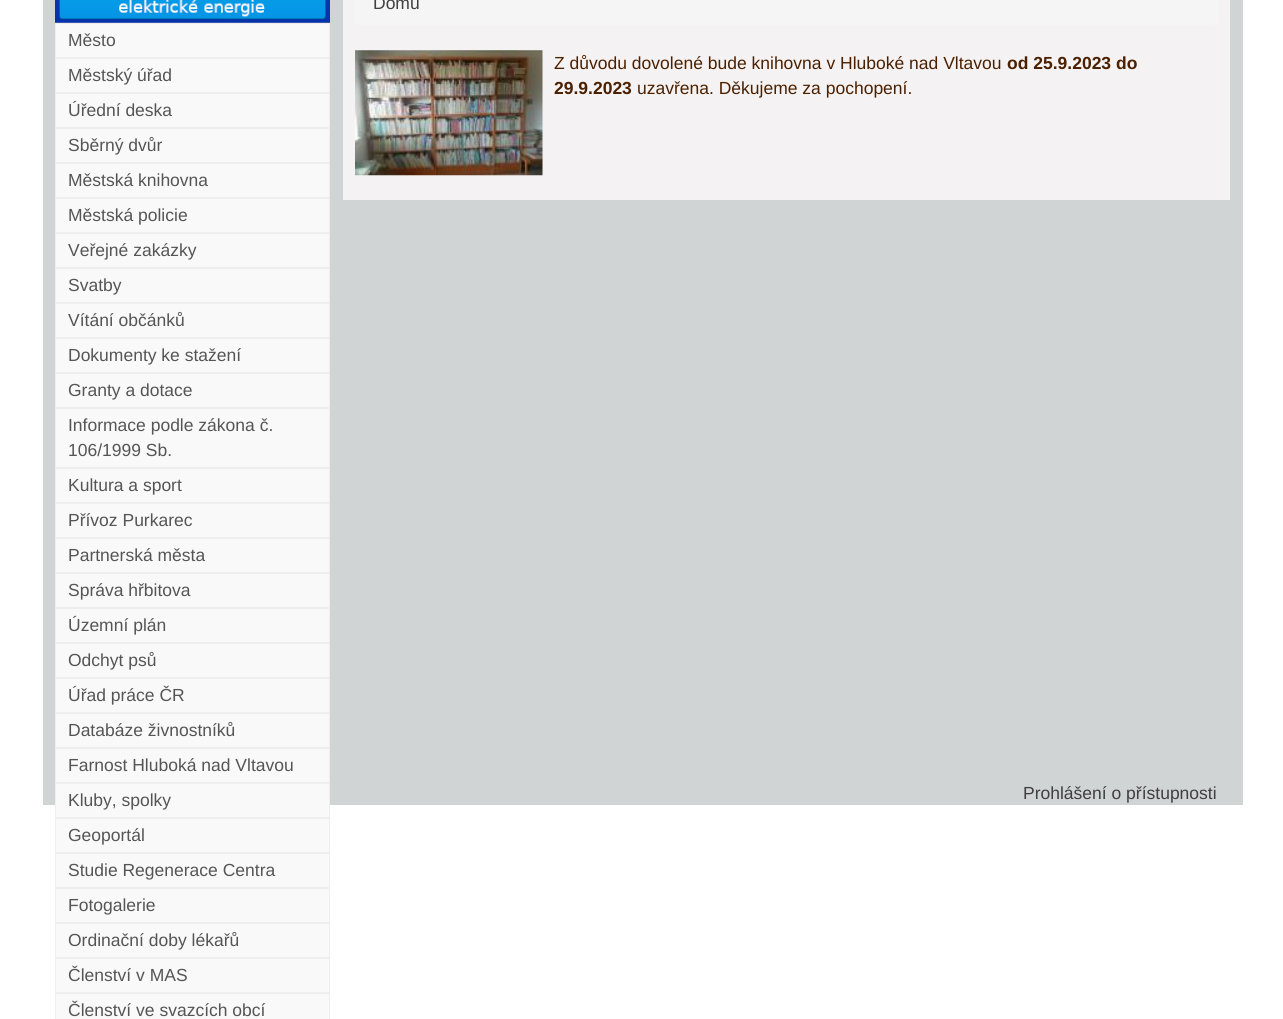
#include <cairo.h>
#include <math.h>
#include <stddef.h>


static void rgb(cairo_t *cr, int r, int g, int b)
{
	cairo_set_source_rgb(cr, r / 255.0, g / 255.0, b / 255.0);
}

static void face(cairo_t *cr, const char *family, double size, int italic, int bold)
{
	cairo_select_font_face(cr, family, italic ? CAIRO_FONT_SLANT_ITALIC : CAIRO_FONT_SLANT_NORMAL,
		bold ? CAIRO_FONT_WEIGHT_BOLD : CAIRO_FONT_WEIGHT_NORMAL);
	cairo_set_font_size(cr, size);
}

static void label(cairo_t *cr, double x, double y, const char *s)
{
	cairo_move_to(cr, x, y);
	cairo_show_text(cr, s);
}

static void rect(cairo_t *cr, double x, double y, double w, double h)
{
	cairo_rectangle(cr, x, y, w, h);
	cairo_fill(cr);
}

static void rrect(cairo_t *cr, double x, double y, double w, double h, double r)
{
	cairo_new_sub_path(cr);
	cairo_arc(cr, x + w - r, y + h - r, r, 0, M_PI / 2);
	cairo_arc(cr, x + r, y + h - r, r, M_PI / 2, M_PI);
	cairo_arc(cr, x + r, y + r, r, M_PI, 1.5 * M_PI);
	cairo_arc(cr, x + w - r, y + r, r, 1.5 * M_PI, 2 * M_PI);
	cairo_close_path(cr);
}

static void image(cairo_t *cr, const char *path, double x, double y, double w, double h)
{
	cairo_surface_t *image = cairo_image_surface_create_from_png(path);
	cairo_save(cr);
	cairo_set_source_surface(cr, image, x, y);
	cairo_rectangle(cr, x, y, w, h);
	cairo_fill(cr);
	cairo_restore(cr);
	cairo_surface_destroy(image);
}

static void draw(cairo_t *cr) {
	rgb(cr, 255, 255, 255);
	cairo_paint(cr);
	rgb(cr, 209, 212, 212);
	rect(cr, 43, 0, 1200, 805);
	image(cr, "image0.png", 55, 0, 275, 23);
	rgb(cr, 249, 249, 249);
	cairo_rectangle(cr, 55.5, 23.5, 274, 34);
	cairo_fill_preserve(cr);
	rgb(cr, 238, 238, 238);
	cairo_set_line_width(cr, 1);
	cairo_stroke(cr);
	face(cr, "Liberation Sans", 17.5, 0, 0);
	rgb(cr, 85, 85, 85);
	label(cr, 68, 46, "Město");
	rgb(cr, 249, 249, 249);
	cairo_rectangle(cr, 55.5, 58.5, 274, 34);
	cairo_fill_preserve(cr);
	rgb(cr, 238, 238, 238);
	cairo_stroke(cr);
	rgb(cr, 85, 85, 85);
	label(cr, 68, 81, "Městský úřad");
	rgb(cr, 249, 249, 249);
	cairo_rectangle(cr, 55.5, 93.5, 274, 34);
	cairo_fill_preserve(cr);
	rgb(cr, 238, 238, 238);
	cairo_stroke(cr);
	rgb(cr, 85, 85, 85);
	label(cr, 68, 116, "Úřední deska");
	rgb(cr, 249, 249, 249);
	cairo_rectangle(cr, 55.5, 128.5, 274, 34);
	cairo_fill_preserve(cr);
	rgb(cr, 238, 238, 238);
	cairo_stroke(cr);
	rgb(cr, 85, 85, 85);
	label(cr, 68, 151, "Sběrný dvůr");
	rgb(cr, 249, 249, 249);
	cairo_rectangle(cr, 55.5, 163.5, 274, 34);
	cairo_fill_preserve(cr);
	rgb(cr, 238, 238, 238);
	cairo_stroke(cr);
	rgb(cr, 85, 85, 85);
	label(cr, 68, 186, "Městská knihovna");
	rgb(cr, 249, 249, 249);
	cairo_rectangle(cr, 55.5, 198.5, 274, 34);
	cairo_fill_preserve(cr);
	rgb(cr, 238, 238, 238);
	cairo_stroke(cr);
	rgb(cr, 85, 85, 85);
	label(cr, 68, 221, "Městská policie");
	rgb(cr, 249, 249, 249);
	cairo_rectangle(cr, 55.5, 233.5, 274, 34);
	cairo_fill_preserve(cr);
	rgb(cr, 238, 238, 238);
	cairo_stroke(cr);
	rgb(cr, 85, 85, 85);
	label(cr, 68, 256, "Veřejné zakázky");
	rgb(cr, 249, 249, 249);
	cairo_rectangle(cr, 55.5, 268.5, 274, 34);
	cairo_fill_preserve(cr);
	rgb(cr, 238, 238, 238);
	cairo_stroke(cr);
	rgb(cr, 85, 85, 85);
	label(cr, 68, 291, "Svatby");
	rgb(cr, 249, 249, 249);
	cairo_rectangle(cr, 55.5, 303.5, 274, 34);
	cairo_fill_preserve(cr);
	rgb(cr, 238, 238, 238);
	cairo_stroke(cr);
	rgb(cr, 85, 85, 85);
	label(cr, 68, 326, "Vítání občánků");
	rgb(cr, 249, 249, 249);
	cairo_rectangle(cr, 55.5, 338.5, 274, 34);
	cairo_fill_preserve(cr);
	rgb(cr, 238, 238, 238);
	cairo_stroke(cr);
	rgb(cr, 85, 85, 85);
	label(cr, 68, 361, "Dokumenty ke stažení");
	rgb(cr, 249, 249, 249);
	cairo_rectangle(cr, 55.5, 373.5, 274, 34);
	cairo_fill_preserve(cr);
	rgb(cr, 238, 238, 238);
	cairo_stroke(cr);
	rgb(cr, 85, 85, 85);
	label(cr, 68, 396, "Granty a dotace");
	rgb(cr, 249, 249, 249);
	cairo_rectangle(cr, 55.5, 408.5, 274, 59);
	cairo_fill_preserve(cr);
	rgb(cr, 238, 238, 238);
	cairo_stroke(cr);
	rgb(cr, 85, 85, 85);
	label(cr, 68, 431, "Informace podle zákona č.");
	label(cr, 68, 456, "106/1999 Sb.");
	rgb(cr, 249, 249, 249);
	cairo_rectangle(cr, 55.5, 468.5, 274, 34);
	cairo_fill_preserve(cr);
	rgb(cr, 238, 238, 238);
	cairo_stroke(cr);
	rgb(cr, 85, 85, 85);
	label(cr, 68, 491, "Kultura a sport");
	rgb(cr, 249, 249, 249);
	cairo_rectangle(cr, 55.5, 503.5, 274, 34);
	cairo_fill_preserve(cr);
	rgb(cr, 238, 238, 238);
	cairo_stroke(cr);
	rgb(cr, 85, 85, 85);
	label(cr, 68, 526, "Přívoz Purkarec");
	rgb(cr, 249, 249, 249);
	cairo_rectangle(cr, 55.5, 538.5, 274, 34);
	cairo_fill_preserve(cr);
	rgb(cr, 238, 238, 238);
	cairo_stroke(cr);
	rgb(cr, 85, 85, 85);
	label(cr, 68, 561, "Partnerská města");
	rgb(cr, 249, 249, 249);
	cairo_rectangle(cr, 55.5, 573.5, 274, 34);
	cairo_fill_preserve(cr);
	rgb(cr, 238, 238, 238);
	cairo_stroke(cr);
	rgb(cr, 85, 85, 85);
	label(cr, 68, 596, "Správa hřbitova");
	rgb(cr, 249, 249, 249);
	cairo_rectangle(cr, 55.5, 608.5, 274, 34);
	cairo_fill_preserve(cr);
	rgb(cr, 238, 238, 238);
	cairo_stroke(cr);
	rgb(cr, 85, 85, 85);
	label(cr, 68, 631, "Územní plán");
	rgb(cr, 249, 249, 249);
	cairo_rectangle(cr, 55.5, 643.5, 274, 34);
	cairo_fill_preserve(cr);
	rgb(cr, 238, 238, 238);
	cairo_stroke(cr);
	rgb(cr, 85, 85, 85);
	label(cr, 68, 666, "Odchyt psů");
	rgb(cr, 249, 249, 249);
	cairo_rectangle(cr, 55.5, 678.5, 274, 34);
	cairo_fill_preserve(cr);
	rgb(cr, 238, 238, 238);
	cairo_stroke(cr);
	rgb(cr, 85, 85, 85);
	label(cr, 68, 701, "Úřad práce ČR");
	rgb(cr, 249, 249, 249);
	cairo_rectangle(cr, 55.5, 713.5, 274, 34);
	cairo_fill_preserve(cr);
	rgb(cr, 238, 238, 238);
	cairo_stroke(cr);
	rgb(cr, 85, 85, 85);
	label(cr, 68, 736, "Databáze živnostníků");
	rgb(cr, 249, 249, 249);
	cairo_rectangle(cr, 55.5, 748.5, 274, 34);
	cairo_fill_preserve(cr);
	rgb(cr, 238, 238, 238);
	cairo_stroke(cr);
	rgb(cr, 85, 85, 85);
	label(cr, 68, 771, "Farnost Hluboká nad Vltavou");
	rgb(cr, 249, 249, 249);
	cairo_rectangle(cr, 55.5, 783.5, 274, 34);
	cairo_fill_preserve(cr);
	rgb(cr, 238, 238, 238);
	cairo_stroke(cr);
	rgb(cr, 85, 85, 85);
	label(cr, 68, 806, "Kluby, spolky");
	rgb(cr, 249, 249, 249);
	cairo_rectangle(cr, 55.5, 818.5, 274, 34);
	cairo_fill_preserve(cr);
	rgb(cr, 238, 238, 238);
	cairo_stroke(cr);
	rgb(cr, 85, 85, 85);
	label(cr, 68, 841, "Geoportál");
	rgb(cr, 249, 249, 249);
	cairo_rectangle(cr, 55.5, 853.5, 274, 34);
	cairo_fill_preserve(cr);
	rgb(cr, 238, 238, 238);
	cairo_stroke(cr);
	rgb(cr, 85, 85, 85);
	label(cr, 68, 876, "Studie Regenerace Centra");
	rgb(cr, 249, 249, 249);
	cairo_rectangle(cr, 55.5, 888.5, 274, 34);
	cairo_fill_preserve(cr);
	rgb(cr, 238, 238, 238);
	cairo_stroke(cr);
	rgb(cr, 85, 85, 85);
	label(cr, 68, 911, "Fotogalerie");
	rgb(cr, 249, 249, 249);
	cairo_rectangle(cr, 55.5, 923.5, 274, 34);
	cairo_fill_preserve(cr);
	rgb(cr, 238, 238, 238);
	cairo_stroke(cr);
	rgb(cr, 85, 85, 85);
	label(cr, 68, 946, "Ordinační doby lékařů");
	rgb(cr, 249, 249, 249);
	cairo_rectangle(cr, 55.5, 958.5, 274, 34);
	cairo_fill_preserve(cr);
	rgb(cr, 238, 238, 238);
	cairo_stroke(cr);
	rgb(cr, 85, 85, 85);
	label(cr, 68, 981, "Členství v MAS");
	rgb(cr, 249, 249, 249);
	cairo_rectangle(cr, 55.5, 993.5, 274, 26);
	cairo_fill_preserve(cr);
	rgb(cr, 238, 238, 238);
	cairo_stroke(cr);
	rgb(cr, 85, 85, 85);
	label(cr, 68, 1016, "Členství ve svazcích obcí");
	rgb(cr, 244, 242, 242);
	rect(cr, 343, 0, 887, 200);
	rgb(cr, 245, 245, 245);
	rrect(cr, 355, -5, 863, 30, 5);
	cairo_fill(cr);
	rgb(cr, 63, 63, 63);
	label(cr, 373, 9, "Domů");
	image(cr, "image1.png", 355, 50, 188, 126);
	rgb(cr, 75, 32, 0);
	label(cr, 554, 69, "Z důvodu dovolené bude knihovna v Hluboké nad Vltavou");
	face(cr, "Liberation Sans", 17.5, 0, 1);
	label(cr, 1007, 69, "od 25.9.2023 do");
	label(cr, 554, 94, "29.9.2023");
	face(cr, "Liberation Sans", 17.5, 0, 0);
	label(cr, 637, 94, "uzavřena. Děkujeme za pochopení.");
	rgb(cr, 63, 63, 63);
	label(cr, 1023, 799, "Prohlášení o přístupnosti");
}

int main(void) {
	cairo_surface_t *surface = cairo_image_surface_create(CAIRO_FORMAT_RGB24, 1283, 1019);
	cairo_t *cr = cairo_create(surface);
	cairo_font_options_t *options = cairo_font_options_create();
	cairo_font_options_set_hint_metrics(options, CAIRO_HINT_METRICS_OFF);
	cairo_font_options_set_hint_style(options, CAIRO_HINT_STYLE_NONE);
	cairo_set_font_options(cr, options);
	cairo_set_miter_limit(cr, 4);
	draw(cr);
	cairo_surface_write_to_png(surface, "render.png");
	cairo_font_options_destroy(options);
	cairo_destroy(cr);
	cairo_surface_destroy(surface);
	return 0;
}
